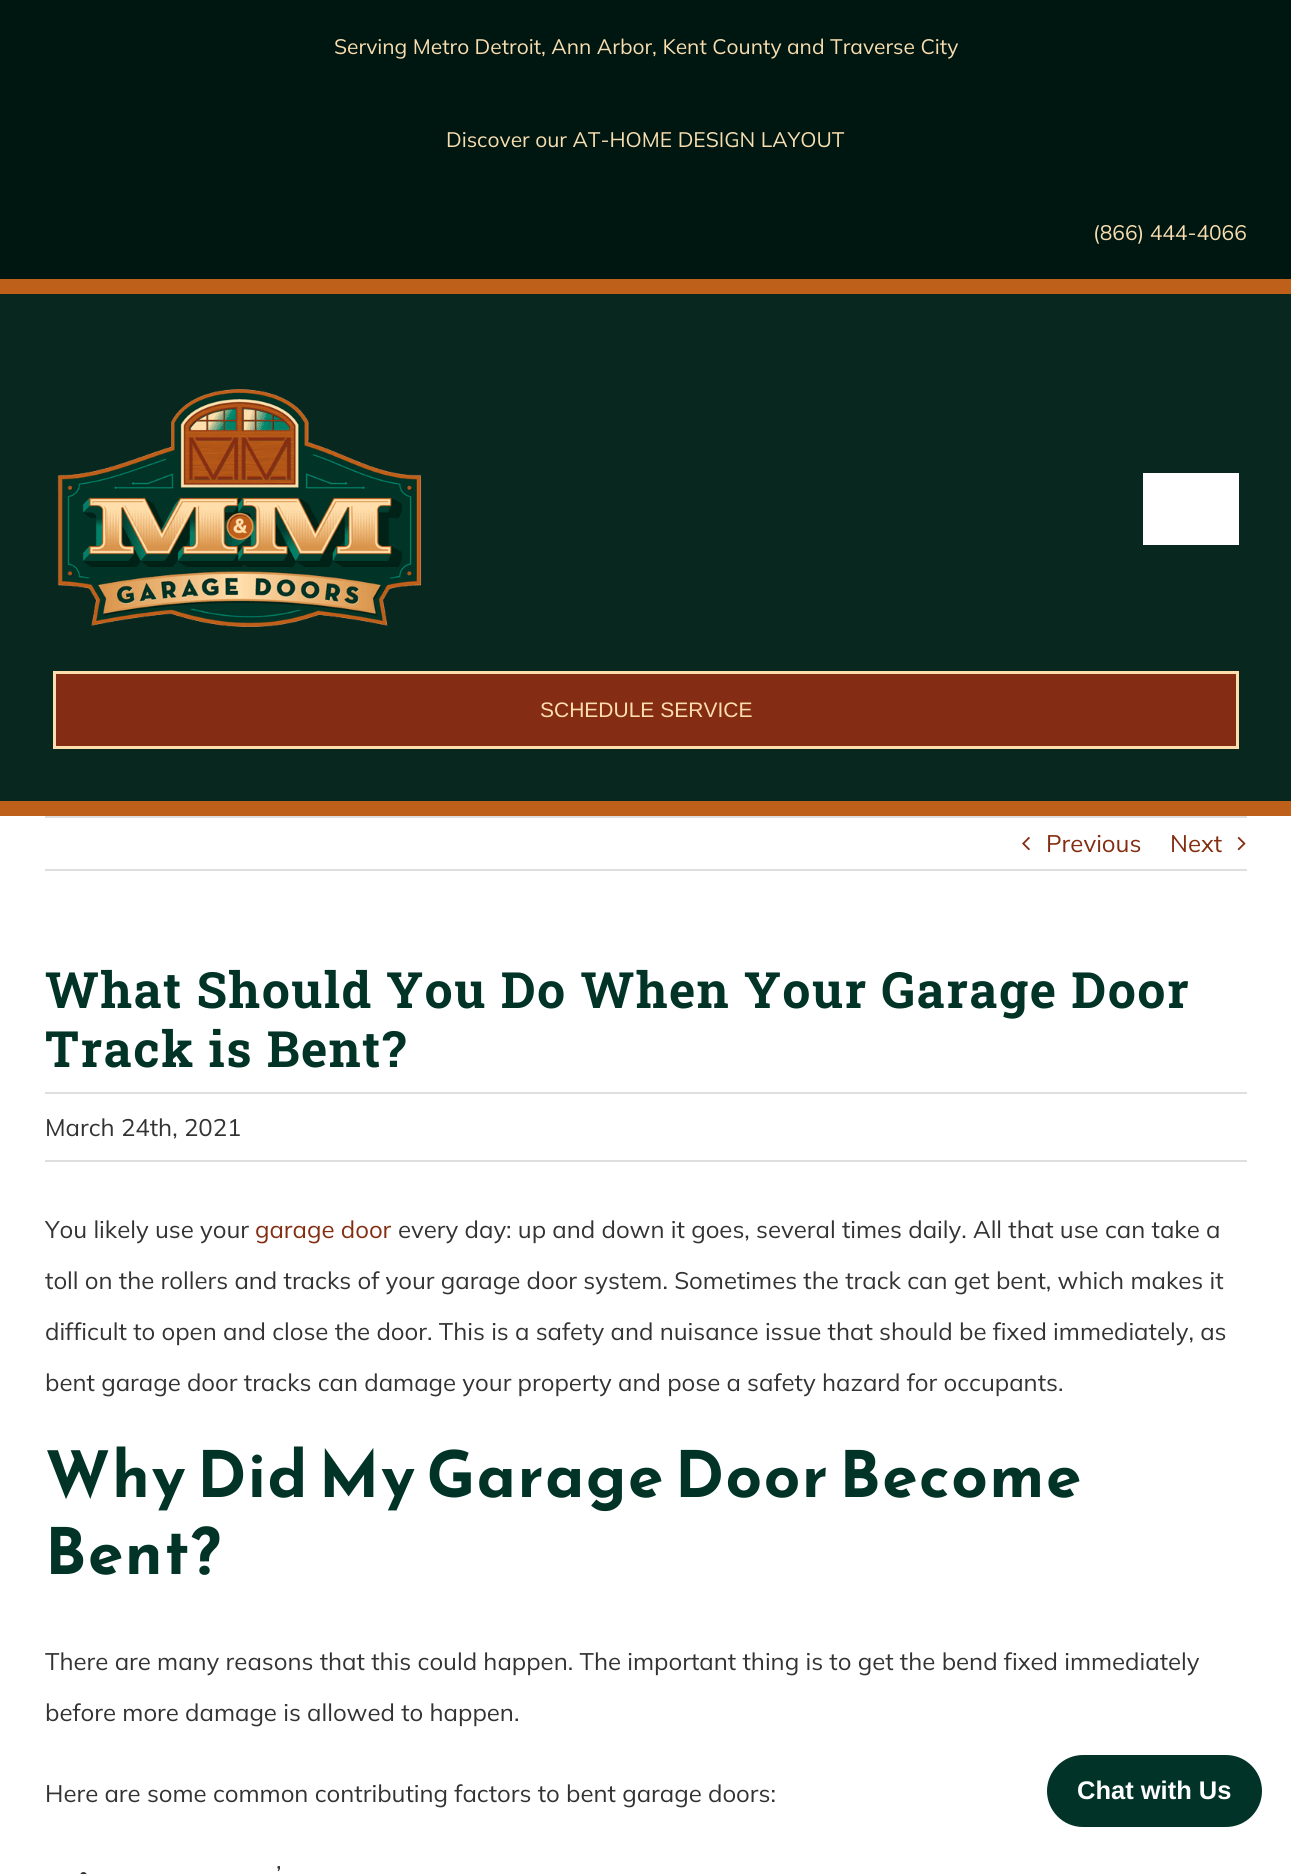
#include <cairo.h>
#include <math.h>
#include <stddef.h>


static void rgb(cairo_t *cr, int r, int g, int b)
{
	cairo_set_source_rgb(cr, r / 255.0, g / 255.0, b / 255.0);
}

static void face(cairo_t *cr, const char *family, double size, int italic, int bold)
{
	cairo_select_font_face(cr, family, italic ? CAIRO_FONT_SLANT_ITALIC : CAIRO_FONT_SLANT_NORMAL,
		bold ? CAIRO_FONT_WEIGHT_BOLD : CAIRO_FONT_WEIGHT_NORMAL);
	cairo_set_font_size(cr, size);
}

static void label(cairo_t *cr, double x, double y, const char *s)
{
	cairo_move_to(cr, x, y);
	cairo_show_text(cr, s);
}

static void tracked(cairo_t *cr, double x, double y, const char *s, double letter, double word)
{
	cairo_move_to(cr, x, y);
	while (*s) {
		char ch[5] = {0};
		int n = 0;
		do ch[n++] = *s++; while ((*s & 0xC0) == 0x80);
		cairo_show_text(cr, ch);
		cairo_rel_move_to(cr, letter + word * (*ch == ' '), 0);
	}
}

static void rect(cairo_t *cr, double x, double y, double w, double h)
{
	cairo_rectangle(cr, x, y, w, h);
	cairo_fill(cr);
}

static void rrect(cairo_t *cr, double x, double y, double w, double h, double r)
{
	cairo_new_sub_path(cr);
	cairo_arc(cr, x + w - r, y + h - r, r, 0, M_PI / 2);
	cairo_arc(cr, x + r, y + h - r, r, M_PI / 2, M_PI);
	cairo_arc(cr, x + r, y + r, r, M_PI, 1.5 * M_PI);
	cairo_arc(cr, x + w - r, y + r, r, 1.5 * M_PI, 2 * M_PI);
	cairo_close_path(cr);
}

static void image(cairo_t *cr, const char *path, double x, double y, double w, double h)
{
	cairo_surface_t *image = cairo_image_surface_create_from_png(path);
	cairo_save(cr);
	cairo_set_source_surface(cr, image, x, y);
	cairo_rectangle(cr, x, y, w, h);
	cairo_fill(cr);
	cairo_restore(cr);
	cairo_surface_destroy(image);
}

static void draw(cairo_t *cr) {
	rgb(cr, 255, 255, 255);
	cairo_paint(cr);
	rgb(cr, 0, 22, 17);
	rect(cr, 0, 0, 1291, 279);
	face(cr, "Mulish ExtraLight", 21, 0, 0);
	rgb(cr, 247, 221, 175);
	label(cr, 334, 54, "Serving Metro Detroit, Ann Arbor, Kent County and Traverse City");
	label(cr, 446, 147, "Discover our AT-HOME DESIGN LAYOUT");
	label(cr, 1093, 240, "(866) 444-4066");
	rgb(cr, 8, 39, 31);
	rect(cr, 0, 294, 1291, 507);
	rgb(cr, 190, 96, 26);
	rect(cr, 0, 279, 1291, 15);
	rect(cr, 0, 801, 1291, 15);
	image(cr, "image0.png", 57, 389, 365, 238);
	rgb(cr, 255, 255, 255);
	rect(cr, 1143, 473, 96, 72);
	rgb(cr, 132, 44, 20);
	cairo_rectangle(cr, 54.5, 672.5, 1183, 75);
	cairo_fill_preserve(cr);
	rgb(cr, 254, 222, 173);
	cairo_set_line_width(cr, 3);
	cairo_stroke(cr);
	face(cr, "Liberation Sans", 21, 0, 0);
	label(cr, 540, 717, "SCHEDULE SERVICE");
	rgb(cr, 224, 222, 222);
	rect(cr, 45, 816, 1202, 2);
	rect(cr, 45, 869, 1202, 2);
	image(cr, "image1.png", 1022, 836, 8, 15);
	face(cr, "Mulish ExtraLight", 24, 0, 0);
	rgb(cr, 131, 45, 17);
	label(cr, 1046, 852, "Previous");
	label(cr, 1170, 852, "Next");
	image(cr, "image2.png", 1237, 836, 9, 15);
	face(cr, "Roboto Slab", 50, 0, 1);
	rgb(cr, 1, 51, 39);
	tracked(cr, 45, 1008, "What Should You Do When Your Garage Door", 1.5, 0);
	tracked(cr, 45, 1067, "Track is Bent?", 1.5, 0);
	rgb(cr, 224, 222, 222);
	rect(cr, 45, 1092, 1202, 2);
	rect(cr, 45, 1160, 1202, 2);
	face(cr, "Mulish ExtraLight", 24, 0, 0);
	rgb(cr, 51, 51, 51);
	label(cr, 45, 1136, "March 24th, 2021");
	label(cr, 45, 1238, "You likely use your");
	rgb(cr, 131, 45, 17);
	label(cr, 255, 1238, "garage door");
	rgb(cr, 51, 51, 51);
	label(cr, 398, 1238, "every day: up and down it goes, several times daily. All that use can take a");
	label(cr, 45, 1289, "toll on the rollers and tracks of your garage door system. Sometimes the track can get bent, which makes it");
	label(cr, 45, 1340, "difficult to open and close the door. This is a safety and nuisance issue that should be fixed immediately, as");
	label(cr, 45, 1391, "bent garage door tracks can damage your property and pose a safety hazard for occupants.");
	face(cr, "Reem Kufi", 64, 0, 1);
	rgb(cr, 1, 51, 39);
	tracked(cr, 45, 1497, "Why Did My Garage Door Become", 1.5, 0);
	tracked(cr, 45, 1574, "Bent?", 1.5, 0);
	face(cr, "Mulish ExtraLight", 24, 0, 0);
	rgb(cr, 51, 51, 51);
	label(cr, 45, 1670, "There are many reasons that this could happen. The important thing is to get the bend fixed immediately");
	label(cr, 45, 1721, "before more damage is allowed to happen.");
	label(cr, 45, 1802, "Here are some common contributing factors to bent garage doors:");
	label(cr, 276, 1883, "’");
	rrect(cr, 80, 1872, 7, 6, 3.5);
	cairo_fill(cr);
	rgb(cr, 1, 51, 40);
	rrect(cr, 1047, 1755, 215, 72, 36);
	cairo_fill(cr);
	face(cr, "Liberation Sans", 25.5, 0, 1);
	rgb(cr, 255, 255, 255);
	label(cr, 1077, 1799, "Chat with Us");
}

int main(void) {
	cairo_surface_t *surface = cairo_image_surface_create(CAIRO_FORMAT_RGB24, 1291, 1874);
	cairo_t *cr = cairo_create(surface);
	cairo_font_options_t *options = cairo_font_options_create();
	cairo_font_options_set_hint_metrics(options, CAIRO_HINT_METRICS_OFF);
	cairo_font_options_set_hint_style(options, CAIRO_HINT_STYLE_NONE);
	cairo_set_font_options(cr, options);
	cairo_set_miter_limit(cr, 4);
	draw(cr);
	cairo_surface_write_to_png(surface, "render.png");
	cairo_font_options_destroy(options);
	cairo_destroy(cr);
	cairo_surface_destroy(surface);
	return 0;
}
